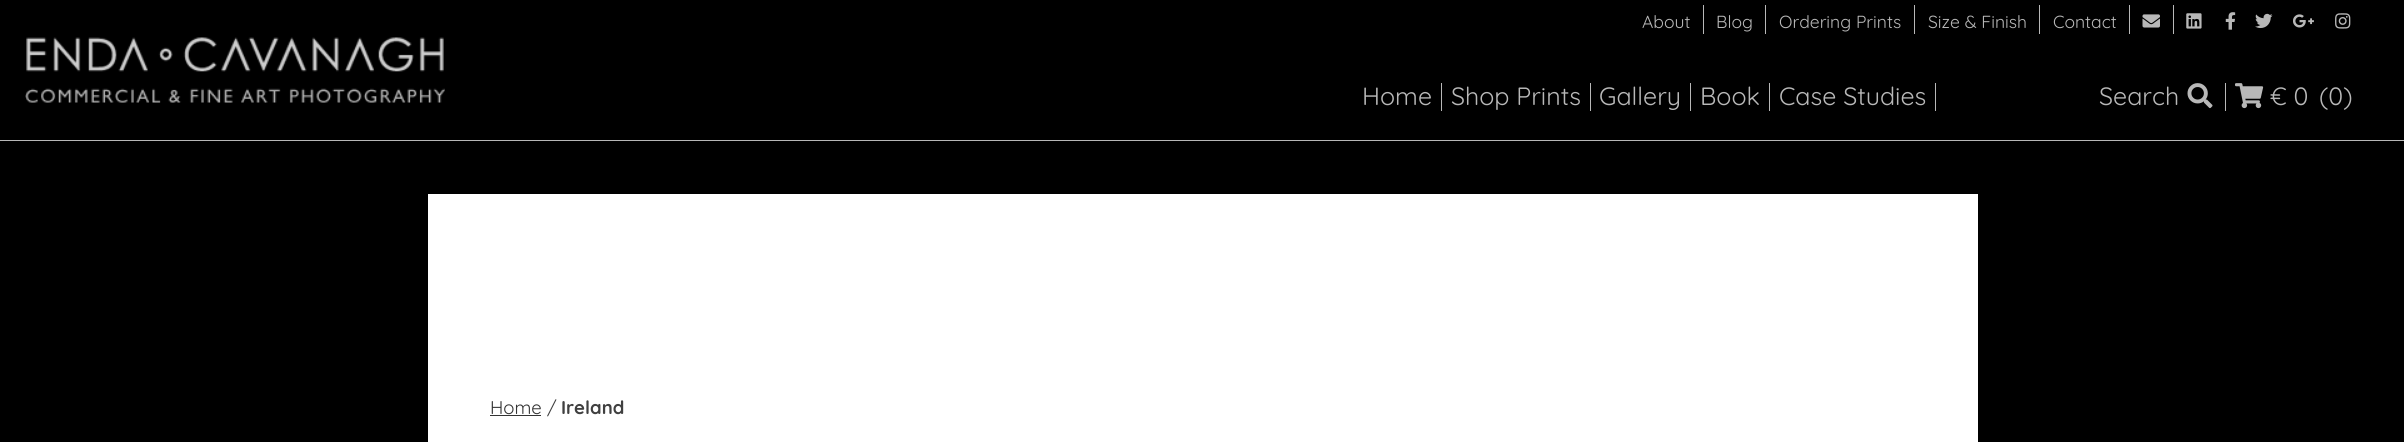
#include <cairo.h>
#include <math.h>
#include <stddef.h>


static void rgb(cairo_t *cr, int r, int g, int b)
{
	cairo_set_source_rgb(cr, r / 255.0, g / 255.0, b / 255.0);
}

static void face(cairo_t *cr, const char *family, double size, int italic, int bold)
{
	cairo_select_font_face(cr, family, italic ? CAIRO_FONT_SLANT_ITALIC : CAIRO_FONT_SLANT_NORMAL,
		bold ? CAIRO_FONT_WEIGHT_BOLD : CAIRO_FONT_WEIGHT_NORMAL);
	cairo_set_font_size(cr, size);
}

static void label(cairo_t *cr, double x, double y, const char *s)
{
	cairo_move_to(cr, x, y);
	cairo_show_text(cr, s);
}

static void rect(cairo_t *cr, double x, double y, double w, double h)
{
	cairo_rectangle(cr, x, y, w, h);
	cairo_fill(cr);
}

static void image(cairo_t *cr, const char *path, double x, double y, double w, double h)
{
	cairo_surface_t *image = cairo_image_surface_create_from_png(path);
	cairo_save(cr);
	cairo_set_source_surface(cr, image, x, y);
	cairo_rectangle(cr, x, y, w, h);
	cairo_fill(cr);
	cairo_restore(cr);
	cairo_surface_destroy(image);
}

static void draw(cairo_t *cr) {
	rgb(cr, 0, 0, 0);
	cairo_paint(cr);
	rgb(cr, 184, 184, 184);
	rect(cr, 0, 140, 2404, 1);
	image(cr, "image0.png", 25, 37, 420, 66);
	face(cr, "Quicksand", 17.5, 0, 0);
	label(cr, 1642, 28, "About");
	rect(cr, 1703, 5, 1, 29);
	label(cr, 1716, 28, "Blog");
	rect(cr, 1765, 5, 1, 29);
	label(cr, 1779, 28, "Ordering Prints");
	rect(cr, 1914, 5, 1, 29);
	label(cr, 1928, 28, "Size & Finish");
	rect(cr, 2039, 5, 1, 29);
	label(cr, 2053, 28, "Contact");
	rect(cr, 2129, 5, 1, 29);
	image(cr, "image1.png", 2142, 14, 18, 14);
	rect(cr, 2173, 5, 1, 29);
	image(cr, "image2.png", 2186, 13, 16, 16);
	image(cr, "image3.png", 2225, 12, 11, 18);
	image(cr, "image4.png", 2255, 13, 18, 16);
	image(cr, "image5.png", 2293, 14, 21, 14);
	image(cr, "image6.png", 2335, 13, 16, 16);
	face(cr, "Quicksand", 25, 0, 0);
	label(cr, 1362, 105, "Home");
	rect(cr, 1441, 83, 1, 28);
	label(cr, 1451, 105, "Shop Prints");
	rect(cr, 1590, 83, 1, 28);
	label(cr, 1599, 105, "Gallery");
	rect(cr, 1690, 83, 1, 28);
	label(cr, 1700, 105, "Book");
	rect(cr, 1769, 83, 1, 28);
	label(cr, 1779, 105, "Case Studies");
	rect(cr, 1935, 83, 1, 28);
	label(cr, 2099, 105, "Search");
	image(cr, "image7.png", 2187, 83, 26, 26);
	rect(cr, 2225, 83, 1, 28);
	image(cr, "image8.png", 2235, 83, 29, 26);
	label(cr, 2270, 105, "€ 0");
	label(cr, 2319, 105, "(0)");
	rgb(cr, 255, 255, 255);
	rect(cr, 428, 194, 1550, 248);
	face(cr, "Quicksand", 18.5, 0, 0);
	rgb(cr, 51, 51, 51);
	label(cr, 490, 414, "Home");
	rect(cr, 490, 415, 51, 1);
	rgb(cr, 64, 64, 64);
	label(cr, 547, 414, "/");
	face(cr, "Quicksand", 18.5, 0, 1);
	label(cr, 561, 414, "Ireland");
}

int main(void) {
	cairo_surface_t *surface = cairo_image_surface_create(CAIRO_FORMAT_RGB24, 2404, 442);
	cairo_t *cr = cairo_create(surface);
	cairo_font_options_t *options = cairo_font_options_create();
	cairo_font_options_set_hint_metrics(options, CAIRO_HINT_METRICS_OFF);
	cairo_font_options_set_hint_style(options, CAIRO_HINT_STYLE_NONE);
	cairo_set_font_options(cr, options);
	cairo_set_miter_limit(cr, 4);
	draw(cr);
	cairo_surface_write_to_png(surface, "render.png");
	cairo_font_options_destroy(options);
	cairo_destroy(cr);
	cairo_surface_destroy(surface);
	return 0;
}
